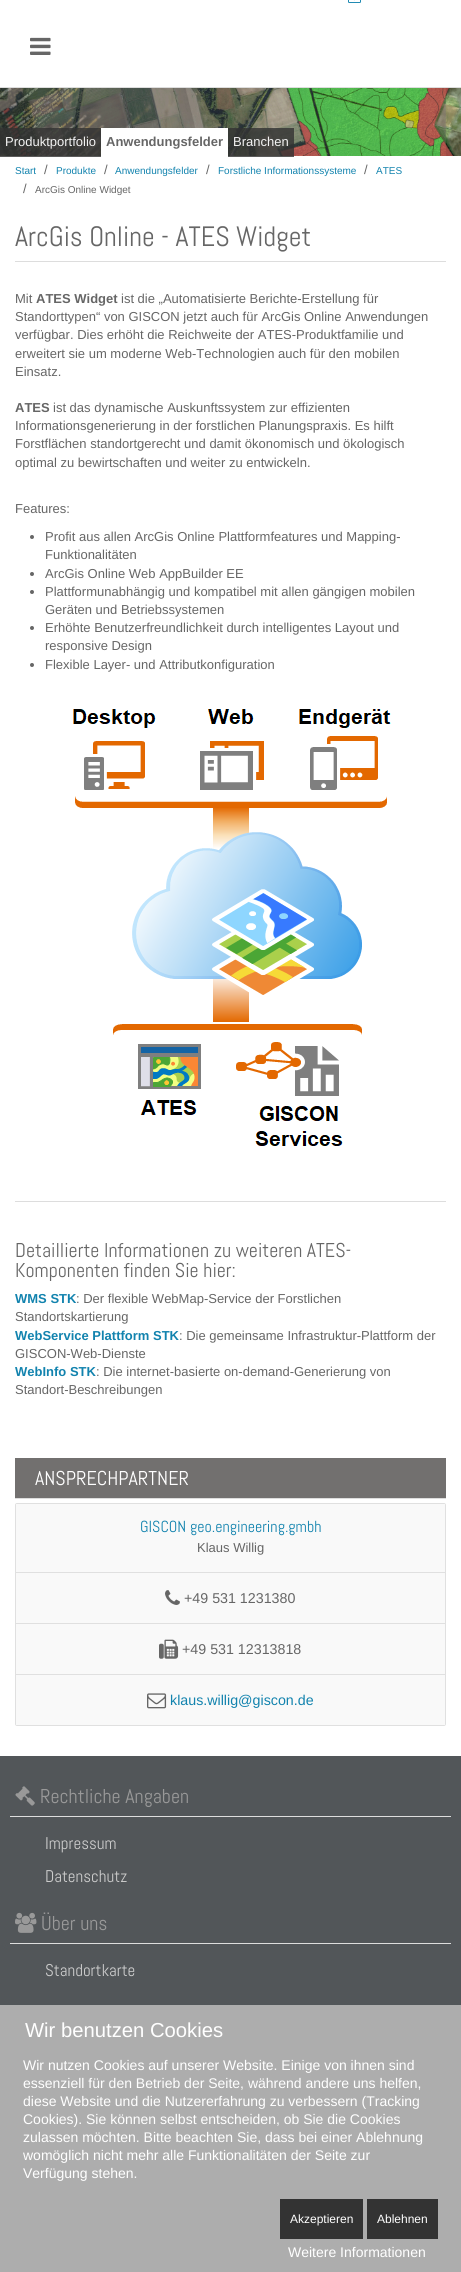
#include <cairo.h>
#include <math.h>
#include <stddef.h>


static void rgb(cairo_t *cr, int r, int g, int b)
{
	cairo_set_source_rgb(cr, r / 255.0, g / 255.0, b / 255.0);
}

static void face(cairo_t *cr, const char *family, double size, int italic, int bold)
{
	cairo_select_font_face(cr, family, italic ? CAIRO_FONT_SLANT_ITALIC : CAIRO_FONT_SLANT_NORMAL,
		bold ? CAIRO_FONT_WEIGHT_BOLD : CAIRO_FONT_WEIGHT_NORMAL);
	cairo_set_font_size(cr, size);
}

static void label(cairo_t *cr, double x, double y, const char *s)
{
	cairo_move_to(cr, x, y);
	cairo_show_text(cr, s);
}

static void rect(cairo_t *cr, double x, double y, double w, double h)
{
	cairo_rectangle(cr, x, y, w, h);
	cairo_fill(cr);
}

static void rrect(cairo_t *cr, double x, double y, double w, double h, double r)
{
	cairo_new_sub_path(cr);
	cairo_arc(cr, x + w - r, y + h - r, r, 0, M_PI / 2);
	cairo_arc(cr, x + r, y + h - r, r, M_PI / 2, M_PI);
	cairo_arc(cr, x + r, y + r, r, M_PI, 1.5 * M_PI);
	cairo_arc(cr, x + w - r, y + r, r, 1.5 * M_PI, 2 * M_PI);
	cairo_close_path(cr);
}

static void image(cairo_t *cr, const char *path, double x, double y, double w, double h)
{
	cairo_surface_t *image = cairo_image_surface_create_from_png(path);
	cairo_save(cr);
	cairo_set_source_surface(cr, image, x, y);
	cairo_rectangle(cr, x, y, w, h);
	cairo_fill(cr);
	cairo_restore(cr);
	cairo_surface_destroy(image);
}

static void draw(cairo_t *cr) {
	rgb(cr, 255, 255, 255);
	cairo_paint(cr);
	image(cr, "image0.png", 348, 0, 13, 3);
	rgb(cr, 221, 221, 221);
	rect(cr, 0, 87, 461, 1);
	image(cr, "image1.png", 30, 37, 21, 18);
	image(cr, "image2.png", 0, 88, 461, 68);
	cairo_set_source_rgba(cr, 0.2, 0.2, 0.2, 0.8);
	rect(cr, 0, 128, 101, 29);
	face(cr, "Liberation Sans", 13, 0, 0);
	rgb(cr, 243, 243, 243);
	label(cr, 5, 146, "Produktportfolio");
	rgb(cr, 255, 255, 255);
	rect(cr, 101, 128, 127, 28);
	face(cr, "Liberation Sans", 13, 0, 1);
	rgb(cr, 102, 102, 102);
	label(cr, 106, 146, "Anwendungsfelder");
	cairo_set_source_rgba(cr, 0.2, 0.2, 0.2, 0.8);
	rect(cr, 228, 128, 66, 29);
	face(cr, "Liberation Sans", 13, 0, 0);
	rgb(cr, 243, 243, 243);
	label(cr, 233, 146, "Branchen");
	face(cr, "Liberation Sans", 10, 0, 0);
	rgb(cr, 18, 131, 174);
	label(cr, 15, 174, "Start");
	face(cr, "Liberation Sans", 13, 0, 0);
	rgb(cr, 102, 102, 102);
	label(cr, 44, 174, "/");
	face(cr, "Liberation Sans", 10, 0, 0);
	rgb(cr, 18, 131, 174);
	label(cr, 56, 174, "Produkte");
	face(cr, "Liberation Sans", 13, 0, 0);
	rgb(cr, 102, 102, 102);
	label(cr, 104, 174, "/");
	face(cr, "Liberation Sans", 10, 0, 0);
	rgb(cr, 18, 131, 174);
	label(cr, 115, 174, "Anwendungsfelder");
	face(cr, "Liberation Sans", 13, 0, 0);
	rgb(cr, 102, 102, 102);
	label(cr, 206, 174, "/");
	face(cr, "Liberation Sans", 10, 0, 0);
	rgb(cr, 18, 131, 174);
	label(cr, 218, 174, "Forstliche Informationssysteme");
	face(cr, "Liberation Sans", 13, 0, 0);
	rgb(cr, 102, 102, 102);
	label(cr, 364, 174, "/");
	face(cr, "Liberation Sans", 10, 0, 0);
	rgb(cr, 18, 131, 174);
	label(cr, 376, 174, "ATES");
	face(cr, "Liberation Sans", 13, 0, 0);
	rgb(cr, 102, 102, 102);
	label(cr, 23, 193, "/");
	face(cr, "Liberation Sans", 10, 0, 0);
	label(cr, 35, 193, "ArcGis Online Widget");
	rgb(cr, 221, 221, 221);
	rect(cr, 15, 261, 431, 1);
	face(cr, "Abel", 28, 0, 0);
	rgb(cr, 102, 102, 102);
	label(cr, 15, 246, "ArcGis Online - ATES Widget");
	face(cr, "Liberation Sans", 13, 0, 0);
	label(cr, 15, 303, "Mit");
	face(cr, "Liberation Sans", 13, 0, 1);
	label(cr, 36, 303, "ATES Widget");
	face(cr, "Liberation Sans", 13, 0, 0);
	label(cr, 121, 303, "ist die „Automatisierte Berichte-Erstellung für");
	label(cr, 15, 321, "Standorttypen“ von GISCON jetzt auch für ArcGis Online Anwendungen");
	label(cr, 15, 339, "verfügbar. Dies erhöht die Reichweite der ATES-Produktfamilie und");
	label(cr, 15, 358, "erweitert sie um moderne Web-Technologien auch für den mobilen");
	label(cr, 15, 376, "Einsatz.");
	face(cr, "Liberation Sans", 13, 0, 1);
	label(cr, 15, 412, "ATES");
	face(cr, "Liberation Sans", 13, 0, 0);
	label(cr, 53, 412, "ist das dynamische Auskunftssystem zur effizienten");
	label(cr, 15, 430, "Informationsgenerierung in der forstlichen Planungspraxis. Es hilft");
	label(cr, 15, 448, "Forstflächen standortgerecht und damit ökonomisch und ökologisch");
	label(cr, 15, 467, "optimal zu bewirtschaften und weiter zu entwickeln.");
	label(cr, 15, 513, "Features:");
	cairo_new_path(cr);
	cairo_arc(cr, 32, 537, 2, 0, 2 * M_PI);
	cairo_fill(cr);
	label(cr, 45, 541, "Profit aus allen ArcGis Online Plattformfeatures und Mapping-");
	label(cr, 45, 559, "Funktionalitäten");
	cairo_new_path(cr);
	cairo_arc(cr, 32, 574, 2, 0, 2 * M_PI);
	cairo_fill(cr);
	label(cr, 45, 578, "ArcGis Online Web AppBuilder EE");
	cairo_new_path(cr);
	cairo_arc(cr, 32, 592, 2, 0, 2 * M_PI);
	cairo_fill(cr);
	label(cr, 45, 596, "Plattformunabhängig und kompatibel mit allen gängigen mobilen");
	label(cr, 45, 614, "Geräten und Betriebssystemen");
	cairo_new_path(cr);
	cairo_arc(cr, 32, 628, 2, 0, 2 * M_PI);
	cairo_fill(cr);
	label(cr, 45, 632, "Erhöhte Benutzerfreundlichkeit durch intelligentes Layout und");
	label(cr, 45, 650, "responsive Design");
	cairo_new_path(cr);
	cairo_arc(cr, 32, 665, 2, 0, 2 * M_PI);
	cairo_fill(cr);
	label(cr, 45, 669, "Flexible Layer- und Attributkonfiguration");
	image(cr, "image3.png", 73, 709, 318, 437);
	rgb(cr, 221, 221, 221);
	rect(cr, 15, 1201, 431, 1);
	face(cr, "Abel", 20, 0, 0);
	rgb(cr, 102, 102, 102);
	label(cr, 15, 1257, "Detaillierte Informationen zu weiteren ATES-");
	label(cr, 15, 1277, "Komponenten finden Sie hier:");
	face(cr, "Liberation Sans", 13, 0, 1);
	rgb(cr, 18, 131, 174);
	label(cr, 15, 1303, "WMS STK");
	face(cr, "Liberation Sans", 13, 0, 0);
	rgb(cr, 102, 102, 102);
	label(cr, 76, 1303, ": Der flexible WebMap-Service der Forstlichen");
	label(cr, 15, 1321, "Standortskartierung");
	face(cr, "Liberation Sans", 13, 0, 1);
	rgb(cr, 18, 131, 174);
	label(cr, 15, 1340, "WebService Plattform STK");
	face(cr, "Liberation Sans", 13, 0, 0);
	rgb(cr, 102, 102, 102);
	label(cr, 179, 1340, ": Die gemeinsame Infrastruktur-Plattform der");
	label(cr, 15, 1358, "GISCON-Web-Dienste");
	face(cr, "Liberation Sans", 13, 0, 1);
	rgb(cr, 18, 131, 174);
	label(cr, 15, 1376, "WebInfo STK");
	face(cr, "Liberation Sans", 13, 0, 0);
	rgb(cr, 102, 102, 102);
	label(cr, 96, 1376, ": Die internet-basierte on-demand-Generierung von");
	label(cr, 15, 1394, "Standort-Beschreibungen");
	rgb(cr, 114, 112, 111);
	rect(cr, 15, 1458, 431, 40);
	rgb(cr, 221, 221, 221);
	rect(cr, 15, 1498, 431, 1);
	face(cr, "Abel", 20, 0, 0);
	rgb(cr, 255, 255, 255);
	label(cr, 35, 1485, "ANSPRECHPARTNER");
	rrect(cr, 15.5, 1503.5, 430, 222, 1.5);
	rgb(cr, 224, 224, 224);
	cairo_set_line_width(cr, 1);
	cairo_stroke(cr);
	rgb(cr, 249, 249, 249);
	rect(cr, 16, 1504, 429, 68);
	rgb(cr, 224, 224, 224);
	rect(cr, 16, 1572, 429, 1);
	face(cr, "Abel", 16, 0, 0);
	rgb(cr, 18, 131, 174);
	label(cr, 140, 1532, "GISCON geo.engineering.gmbh");
	face(cr, "Liberation Sans", 13, 0, 0);
	rgb(cr, 102, 102, 102);
	label(cr, 197, 1552, "Klaus Willig");
	rgb(cr, 249, 249, 249);
	rect(cr, 16, 1573, 429, 50);
	rgb(cr, 224, 224, 224);
	rect(cr, 16, 1623, 429, 1);
	image(cr, "image4.png", 165, 1590, 15, 15);
	face(cr, "Liberation Sans", 14.25, 0, 0);
	rgb(cr, 102, 102, 102);
	label(cr, 184, 1603, "+49 531 1231380");
	rgb(cr, 249, 249, 249);
	rect(cr, 16, 1624, 429, 50);
	rgb(cr, 224, 224, 224);
	rect(cr, 16, 1674, 429, 1);
	image(cr, "image5.png", 159, 1639, 20, 20);
	rgb(cr, 102, 102, 102);
	label(cr, 182, 1654, "+49 531 12313818");
	rgb(cr, 249, 249, 249);
	rect(cr, 16, 1675, 429, 50);
	image(cr, "image6.png", 147, 1693, 20, 16);
	rgb(cr, 18, 131, 174);
	label(cr, 170, 1705, "klaus.willig@giscon.de");
	rgb(cr, 82, 86, 89);
	rect(cr, 0, 1756, 461, 249);
	image(cr, "image7.png", 15, 1786, 20, 20);
	face(cr, "Abel", 20, 0, 0);
	rgb(cr, 153, 153, 153);
	label(cr, 40, 1803, "Rechtliche Angaben");
	rgb(cr, 221, 221, 221);
	rect(cr, 10, 1816, 441, 1);
	face(cr, "Abel", 17, 0, 0);
	rgb(cr, 204, 204, 204);
	label(cr, 45, 1849, "Impressum");
	label(cr, 45, 1882, "Datenschutz");
	image(cr, "image8.png", 15, 1912, 22, 21);
	face(cr, "Abel", 20, 0, 0);
	rgb(cr, 153, 153, 153);
	label(cr, 41, 1930, "Über uns");
	rgb(cr, 221, 221, 221);
	rect(cr, 10, 1943, 441, 1);
	face(cr, "Abel", 17, 0, 0);
	rgb(cr, 204, 204, 204);
	label(cr, 45, 1976, "Standortkarte");
	rgb(cr, 173, 173, 173);
	rect(cr, 0, 2005, 461, 267);
	face(cr, "Liberation Sans", 20.25, 0, 0);
	rgb(cr, 255, 255, 255);
	label(cr, 25, 2037, "Wir benutzen Cookies");
	face(cr, "Liberation Sans", 14, 0, 0);
	label(cr, 23, 2070, "Wir nutzen Cookies auf unserer Website. Einige von ihnen sind");
	label(cr, 23, 2088, "essenziell für den Betrieb der Seite, während andere uns helfen,");
	label(cr, 23, 2106, "diese Website und die Nutzererfahrung zu verbessern (Tracking");
	label(cr, 23, 2124, "Cookies). Sie können selbst entscheiden, ob Sie die Cookies");
	label(cr, 23, 2142, "zulassen möchten. Bitte beachten Sie, dass bei einer Ablehnung");
	label(cr, 23, 2160, "womöglich nicht mehr alle Funktionalitäten der Seite zur");
	label(cr, 23, 2178, "Verfügung stehen.");
	rgb(cr, 51, 51, 51);
	rect(cr, 280, 2199, 83, 40);
	face(cr, "Liberation Sans", 12, 0, 0);
	rgb(cr, 255, 255, 255);
	label(cr, 290, 2223, "Akzeptieren");
	rgb(cr, 51, 51, 51);
	rect(cr, 367, 2199, 71, 40);
	rgb(cr, 255, 255, 255);
	label(cr, 377, 2223, "Ablehnen");
	face(cr, "Liberation Sans", 14, 0, 0);
	label(cr, 288, 2257, "Weitere Informationen");
}

int main(void) {
	cairo_surface_t *surface = cairo_image_surface_create(CAIRO_FORMAT_RGB24, 461, 2272);
	cairo_t *cr = cairo_create(surface);
	cairo_font_options_t *options = cairo_font_options_create();
	cairo_font_options_set_hint_metrics(options, CAIRO_HINT_METRICS_OFF);
	cairo_font_options_set_hint_style(options, CAIRO_HINT_STYLE_NONE);
	cairo_set_font_options(cr, options);
	cairo_set_miter_limit(cr, 4);
	draw(cr);
	cairo_surface_write_to_png(surface, "render.png");
	cairo_font_options_destroy(options);
	cairo_destroy(cr);
	cairo_surface_destroy(surface);
	return 0;
}
